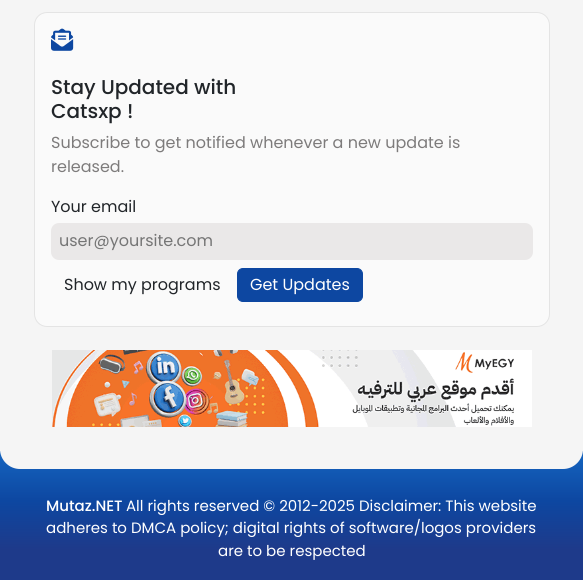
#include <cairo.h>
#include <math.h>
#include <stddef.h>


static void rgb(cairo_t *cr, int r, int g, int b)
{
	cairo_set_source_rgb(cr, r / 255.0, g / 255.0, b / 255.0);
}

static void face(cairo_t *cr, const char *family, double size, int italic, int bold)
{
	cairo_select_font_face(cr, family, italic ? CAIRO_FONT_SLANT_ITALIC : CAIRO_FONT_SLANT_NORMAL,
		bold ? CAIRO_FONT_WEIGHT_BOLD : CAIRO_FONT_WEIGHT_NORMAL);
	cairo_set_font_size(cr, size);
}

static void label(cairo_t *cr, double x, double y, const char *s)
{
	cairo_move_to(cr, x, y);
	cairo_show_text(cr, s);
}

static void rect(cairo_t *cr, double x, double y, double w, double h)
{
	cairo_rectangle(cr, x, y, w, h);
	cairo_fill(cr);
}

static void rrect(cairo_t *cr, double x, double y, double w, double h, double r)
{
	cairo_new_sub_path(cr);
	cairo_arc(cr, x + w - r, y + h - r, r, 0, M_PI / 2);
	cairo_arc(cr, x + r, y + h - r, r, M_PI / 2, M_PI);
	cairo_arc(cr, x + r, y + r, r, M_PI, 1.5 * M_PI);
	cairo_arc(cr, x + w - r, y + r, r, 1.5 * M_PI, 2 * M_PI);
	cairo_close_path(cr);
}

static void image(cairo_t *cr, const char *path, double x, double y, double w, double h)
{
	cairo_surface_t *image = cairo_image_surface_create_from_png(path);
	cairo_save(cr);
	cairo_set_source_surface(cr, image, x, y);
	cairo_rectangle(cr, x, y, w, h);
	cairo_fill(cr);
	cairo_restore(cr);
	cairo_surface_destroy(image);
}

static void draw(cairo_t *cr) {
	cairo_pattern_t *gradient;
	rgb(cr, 245, 245, 245);
	cairo_paint(cr);
	rgb(cr, 250, 250, 250);
	rrect(cr, 34.5, 12.5, 515, 314, 12.5);
	cairo_fill_preserve(cr);
	rgb(cr, 228, 228, 228);
	cairo_set_line_width(cr, 1);
	cairo_stroke(cr);
	image(cr, "image0.png", 51, 28, 23, 23);
	face(cr, "Poppins Medium", 20, 0, 0);
	rgb(cr, 33, 37, 41);
	label(cr, 51, 94, "Stay Updated with");
	label(cr, 51, 118, "Catsxp !");
	face(cr, "Poppins", 16, 0, 0);
	rgb(cr, 125, 123, 123);
	label(cr, 51, 148, "Subscribe to get notified whenever a new update is");
	label(cr, 51, 172, "released.");
	rgb(cr, 33, 37, 41);
	label(cr, 51, 212, "Your email");
	rgb(cr, 234, 232, 232);
	rrect(cr, 51, 223, 482, 37, 8);
	cairo_fill(cr);
	rgb(cr, 117, 117, 117);
	label(cr, 59, 246, "user@yoursite.com");
	rgb(cr, 33, 37, 41);
	label(cr, 64, 290, "Show my programs");
	rgb(cr, 13, 71, 161);
	rrect(cr, 237.5, 268.5, 125, 33, 5.5);
	cairo_fill_preserve(cr);
	cairo_stroke(cr);
	rgb(cr, 255, 255, 255);
	label(cr, 250, 290, "Get Updates");
	image(cr, "image1.png", 52, 350, 480, 77);
	gradient = cairo_pattern_create_linear(292, 451, 292, 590);
	cairo_pattern_add_color_stop_rgba(gradient, 0, 0.082, 0.396, 0.753, 1);
	cairo_pattern_add_color_stop_rgba(gradient, 0.36, 0.051, 0.278, 0.631, 1);
	cairo_pattern_add_color_stop_rgba(gradient, 0.71, 0.118, 0.227, 0.541, 1);
	cairo_set_source(cr, gradient);
	cairo_pattern_destroy(gradient);
	rect(cr, 0, 451, 583, 129);
	rgb(cr, 245, 245, 245);
	cairo_new_path(cr);
	cairo_move_to(cr, 0, 427);
	cairo_line_to(cr, 583, 427);
	cairo_line_to(cr, 583, 449);
	cairo_curve_to(cr, 583, 460, 574, 469, 563, 469);
	cairo_line_to(cr, 20, 469);
	cairo_curve_to(cr, 9, 469, 0, 460, 0, 449);
	cairo_close_path(cr);
	cairo_fill(cr);
	face(cr, "Poppins Medium", 15, 0, 0);
	rgb(cr, 255, 255, 255);
	label(cr, 46, 511, "Mutaz.NET");
	face(cr, "Poppins", 15, 0, 0);
	label(cr, 126, 511, "All rights reserved © 2012-2025 Disclaimer: This website");
	label(cr, 46, 533, "adheres to DMCA policy; digital rights of software/logos providers");
	label(cr, 218, 556, "are to be respected");
}

int main(void) {
	cairo_surface_t *surface = cairo_image_surface_create(CAIRO_FORMAT_RGB24, 583, 580);
	cairo_t *cr = cairo_create(surface);
	cairo_font_options_t *options = cairo_font_options_create();
	cairo_font_options_set_hint_metrics(options, CAIRO_HINT_METRICS_OFF);
	cairo_font_options_set_hint_style(options, CAIRO_HINT_STYLE_NONE);
	cairo_set_font_options(cr, options);
	cairo_set_miter_limit(cr, 4);
	draw(cr);
	cairo_surface_write_to_png(surface, "render.png");
	cairo_font_options_destroy(options);
	cairo_destroy(cr);
	cairo_surface_destroy(surface);
	return 0;
}
